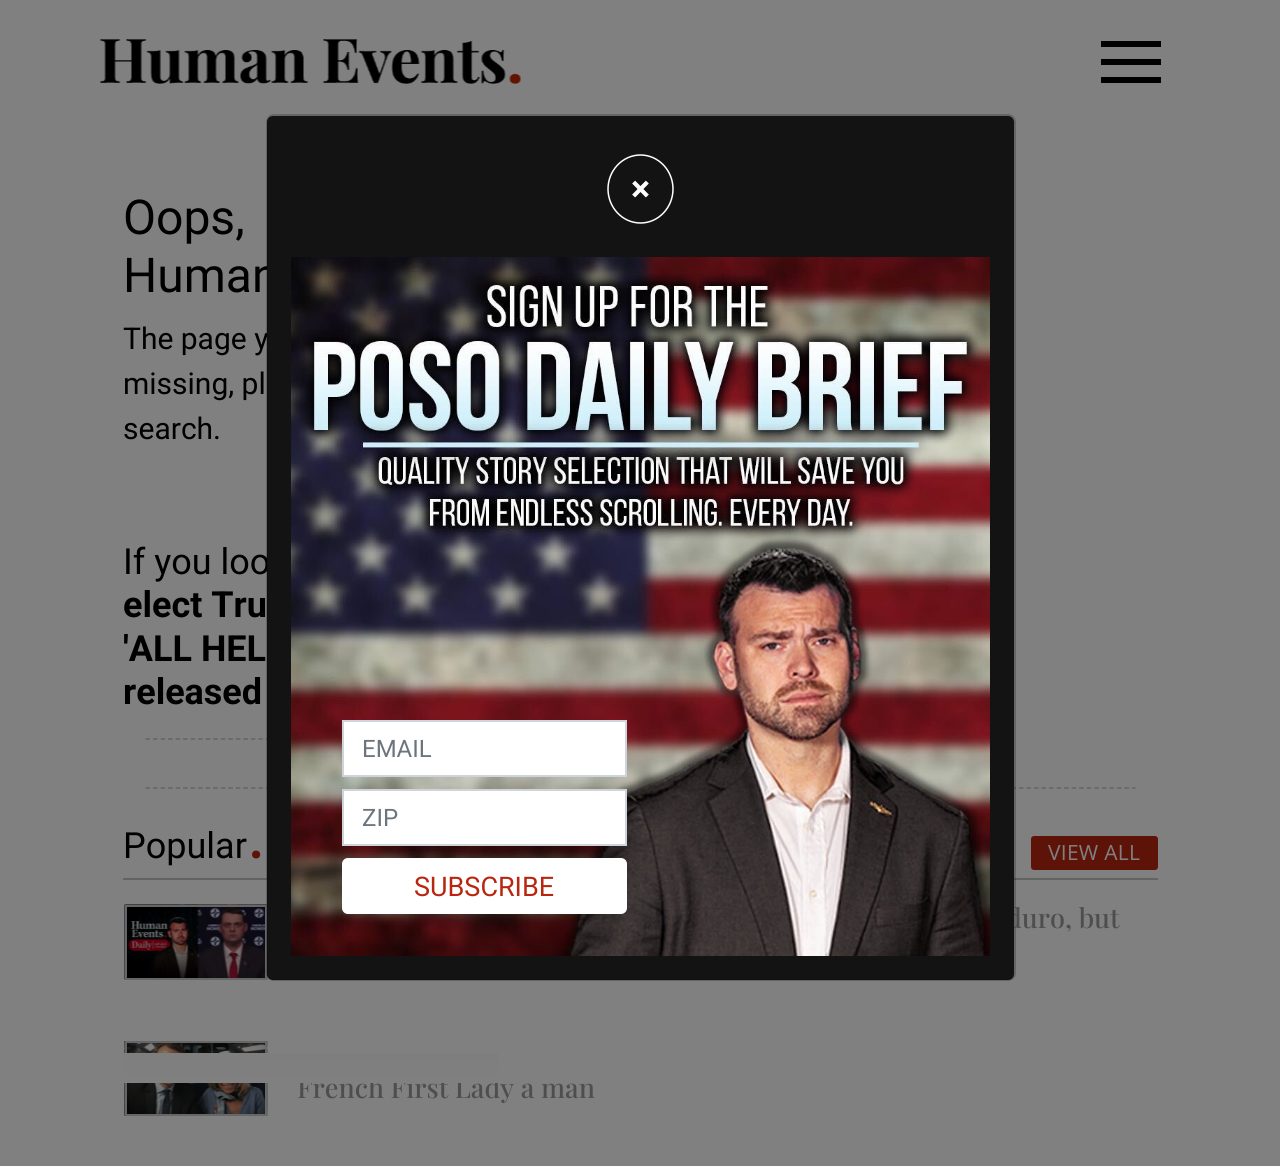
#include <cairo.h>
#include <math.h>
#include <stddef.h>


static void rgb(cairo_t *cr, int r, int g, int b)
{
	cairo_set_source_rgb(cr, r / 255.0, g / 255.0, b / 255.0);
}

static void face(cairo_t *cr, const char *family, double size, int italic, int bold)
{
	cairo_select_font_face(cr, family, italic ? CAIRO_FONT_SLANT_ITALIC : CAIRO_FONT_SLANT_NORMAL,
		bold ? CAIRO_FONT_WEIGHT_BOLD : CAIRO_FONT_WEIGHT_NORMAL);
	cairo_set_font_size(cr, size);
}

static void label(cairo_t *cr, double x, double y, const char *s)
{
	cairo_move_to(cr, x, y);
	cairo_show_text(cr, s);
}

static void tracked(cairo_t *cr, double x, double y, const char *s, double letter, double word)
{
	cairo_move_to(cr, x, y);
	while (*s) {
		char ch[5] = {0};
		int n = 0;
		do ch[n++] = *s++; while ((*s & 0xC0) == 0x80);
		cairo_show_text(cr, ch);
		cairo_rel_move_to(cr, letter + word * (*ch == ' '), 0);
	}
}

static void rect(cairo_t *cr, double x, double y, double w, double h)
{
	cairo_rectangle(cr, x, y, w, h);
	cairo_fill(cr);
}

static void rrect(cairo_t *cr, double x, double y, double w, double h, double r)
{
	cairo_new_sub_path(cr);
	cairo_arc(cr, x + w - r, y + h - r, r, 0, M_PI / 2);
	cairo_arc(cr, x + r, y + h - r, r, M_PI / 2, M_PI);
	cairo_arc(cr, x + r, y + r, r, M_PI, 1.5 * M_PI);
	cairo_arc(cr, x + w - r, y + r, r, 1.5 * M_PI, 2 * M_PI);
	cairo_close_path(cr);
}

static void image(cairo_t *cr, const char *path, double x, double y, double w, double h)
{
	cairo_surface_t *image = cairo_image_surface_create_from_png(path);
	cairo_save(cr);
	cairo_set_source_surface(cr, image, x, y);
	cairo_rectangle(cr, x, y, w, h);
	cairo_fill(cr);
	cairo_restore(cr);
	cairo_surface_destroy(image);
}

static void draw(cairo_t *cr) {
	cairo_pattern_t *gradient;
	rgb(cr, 128, 128, 128);
	cairo_paint(cr);
	image(cr, "image0.png", 100, 39, 421, 45);
	rgb(cr, 0, 0, 0);
	rect(cr, 1101, 41, 60, 6);
	rect(cr, 1101, 59, 60, 6);
	rect(cr, 1101, 77, 60, 6);
	face(cr, "Roboto", 48, 0, 0);
	label(cr, 123, 292, "Human");
	face(cr, "Roboto", 30, 0, 0);
	label(cr, 123, 349, "The page y");
	face(cr, "Roboto", 36, 0, 0);
	label(cr, 123, 574, "If you loo");
	cairo_new_path(cr);
	cairo_move_to(cr, 145.5, 739);
	cairo_line_to(cr, 775.5, 739);
	rgb(cr, 100, 99, 99);
	cairo_set_line_width(cr, 1.5);
	cairo_set_dash(cr, (double[]){4.5, 3.03}, 2, 0);
	cairo_stroke(cr);
	cairo_new_path(cr);
	cairo_move_to(cr, 145.5, 788);
	cairo_line_to(cr, 1135.5, 788);
	cairo_stroke(cr);
	rect(cr, 123, 878, 1035, 2);
	image(cr, "image2.png", 124, 904, 144, 76);
	face(cr, "Playfair Display Medium", 27, 0, 0);
	rgb(cr, 78, 78, 78);
	label(cr, 1006, 928, "duro, but");
	rgb(cr, 19, 19, 19);
	rrect(cr, 267, 116, 747, 864, 6);
	cairo_fill(cr);
	cairo_rectangle(cr, 126, 906, 140, 73);
	rgb(cr, 102, 102, 102);
	cairo_set_line_width(cr, 2);
	cairo_set_dash(cr, NULL, 0, 0);
	cairo_stroke(cr);
	rrect(cr, 267, 115, 748, 865, 7);
	cairo_set_source_rgba(cr, 0, 0, 0, 0.2);
	cairo_stroke(cr);
	cairo_new_path(cr);
	cairo_move_to(cr, 640.5, 155);
	cairo_curve_to(cr, 658.5, 155, 673, 170.5, 673, 189);
	cairo_curve_to(cr, 673, 207.5, 658.5, 223, 640.5, 223);
	cairo_curve_to(cr, 622.5, 223, 608, 207.5, 608, 189);
	cairo_curve_to(cr, 608, 170.5, 622.5, 155, 640.5, 155);
	cairo_close_path(cr);
	rgb(cr, 255, 255, 255);
	cairo_set_line_width(cr, 1.5);
	cairo_stroke(cr);
	face(cr, "Roboto", 36, 0, 1);
	label(cr, 631, 201, "×");
	image(cr, "image1.png", 291, 257, 699, 699);
	cairo_rectangle(cr, 343, 721, 283, 55);
	cairo_fill_preserve(cr);
	rgb(cr, 206, 212, 218);
	cairo_set_line_width(cr, 2);
	cairo_stroke(cr);
	face(cr, "Roboto", 24, 0, 0);
	rgb(cr, 108, 117, 125);
	label(cr, 362, 757, "EMAIL");
	rgb(cr, 255, 255, 255);
	cairo_rectangle(cr, 343, 790, 283, 55);
	cairo_fill_preserve(cr);
	rgb(cr, 206, 212, 218);
	cairo_stroke(cr);
	rgb(cr, 108, 117, 125);
	label(cr, 362, 826, "ZIP");
	rgb(cr, 255, 255, 255);
	rrect(cr, 342, 858, 285, 56, 6);
	cairo_fill(cr);
	face(cr, "Roboto", 27, 0, 0);
	rgb(cr, 185, 38, 16);
	label(cr, 414, 896, "SUBSCRIBE");
	face(cr, "Roboto", 48, 0, 0);
	rgb(cr, 0, 0, 0);
	label(cr, 123, 234, "Oops,");
	face(cr, "Roboto", 30, 0, 0);
	label(cr, 123, 394, "missing, pl");
	label(cr, 123, 439, "search.");
	face(cr, "Roboto", 36, 0, 1);
	label(cr, 123, 617, "elect Tru");
	label(cr, 123, 661, "'ALL HEL");
	label(cr, 123, 704, "released");
	face(cr, "Roboto", 36, 0, 0);
	label(cr, 123, 858, "Popular");
	face(cr, "Roboto", 72, 0, 0);
	rgb(cr, 93, 19, 8);
	label(cr, 247, 858, ".");
	rrect(cr, 1031, 836, 127, 34, 3);
	cairo_fill(cr);
	face(cr, "Open Sans", 21, 0, 0);
	rgb(cr, 128, 128, 128);
	tracked(cr, 1048, 860, "VIEW ALL", 0.25, 0);
	image(cr, "image3.png", 124, 1041, 144, 75);
	cairo_rectangle(cr, 126, 1042, 140, 73);
	rgb(cr, 102, 102, 102);
	cairo_stroke(cr);
	face(cr, "Playfair Display Medium", 27, 0, 0);
	rgb(cr, 78, 78, 78);
	label(cr, 297, 1098, "French First Lady a man");
	gradient = cairo_pattern_create_linear(641, 1053, 641, 1083);
	cairo_pattern_add_color_stop_rgba(gradient, 0, 0.494, 0.494, 0.494, 1);
	cairo_pattern_add_color_stop_rgba(gradient, 1, 0.502, 0.502, 0.502, 1);
	cairo_set_source(cr, gradient);
	cairo_pattern_destroy(gradient);
	rect(cr, 124, 1053, 374, 30);
}

int main(void) {
	cairo_surface_t *surface = cairo_image_surface_create(CAIRO_FORMAT_RGB24, 1280, 1166);
	cairo_t *cr = cairo_create(surface);
	cairo_font_options_t *options = cairo_font_options_create();
	cairo_font_options_set_hint_metrics(options, CAIRO_HINT_METRICS_OFF);
	cairo_font_options_set_hint_style(options, CAIRO_HINT_STYLE_NONE);
	cairo_set_font_options(cr, options);
	cairo_set_miter_limit(cr, 4);
	draw(cr);
	cairo_surface_write_to_png(surface, "render.png");
	cairo_font_options_destroy(options);
	cairo_destroy(cr);
	cairo_surface_destroy(surface);
	return 0;
}
